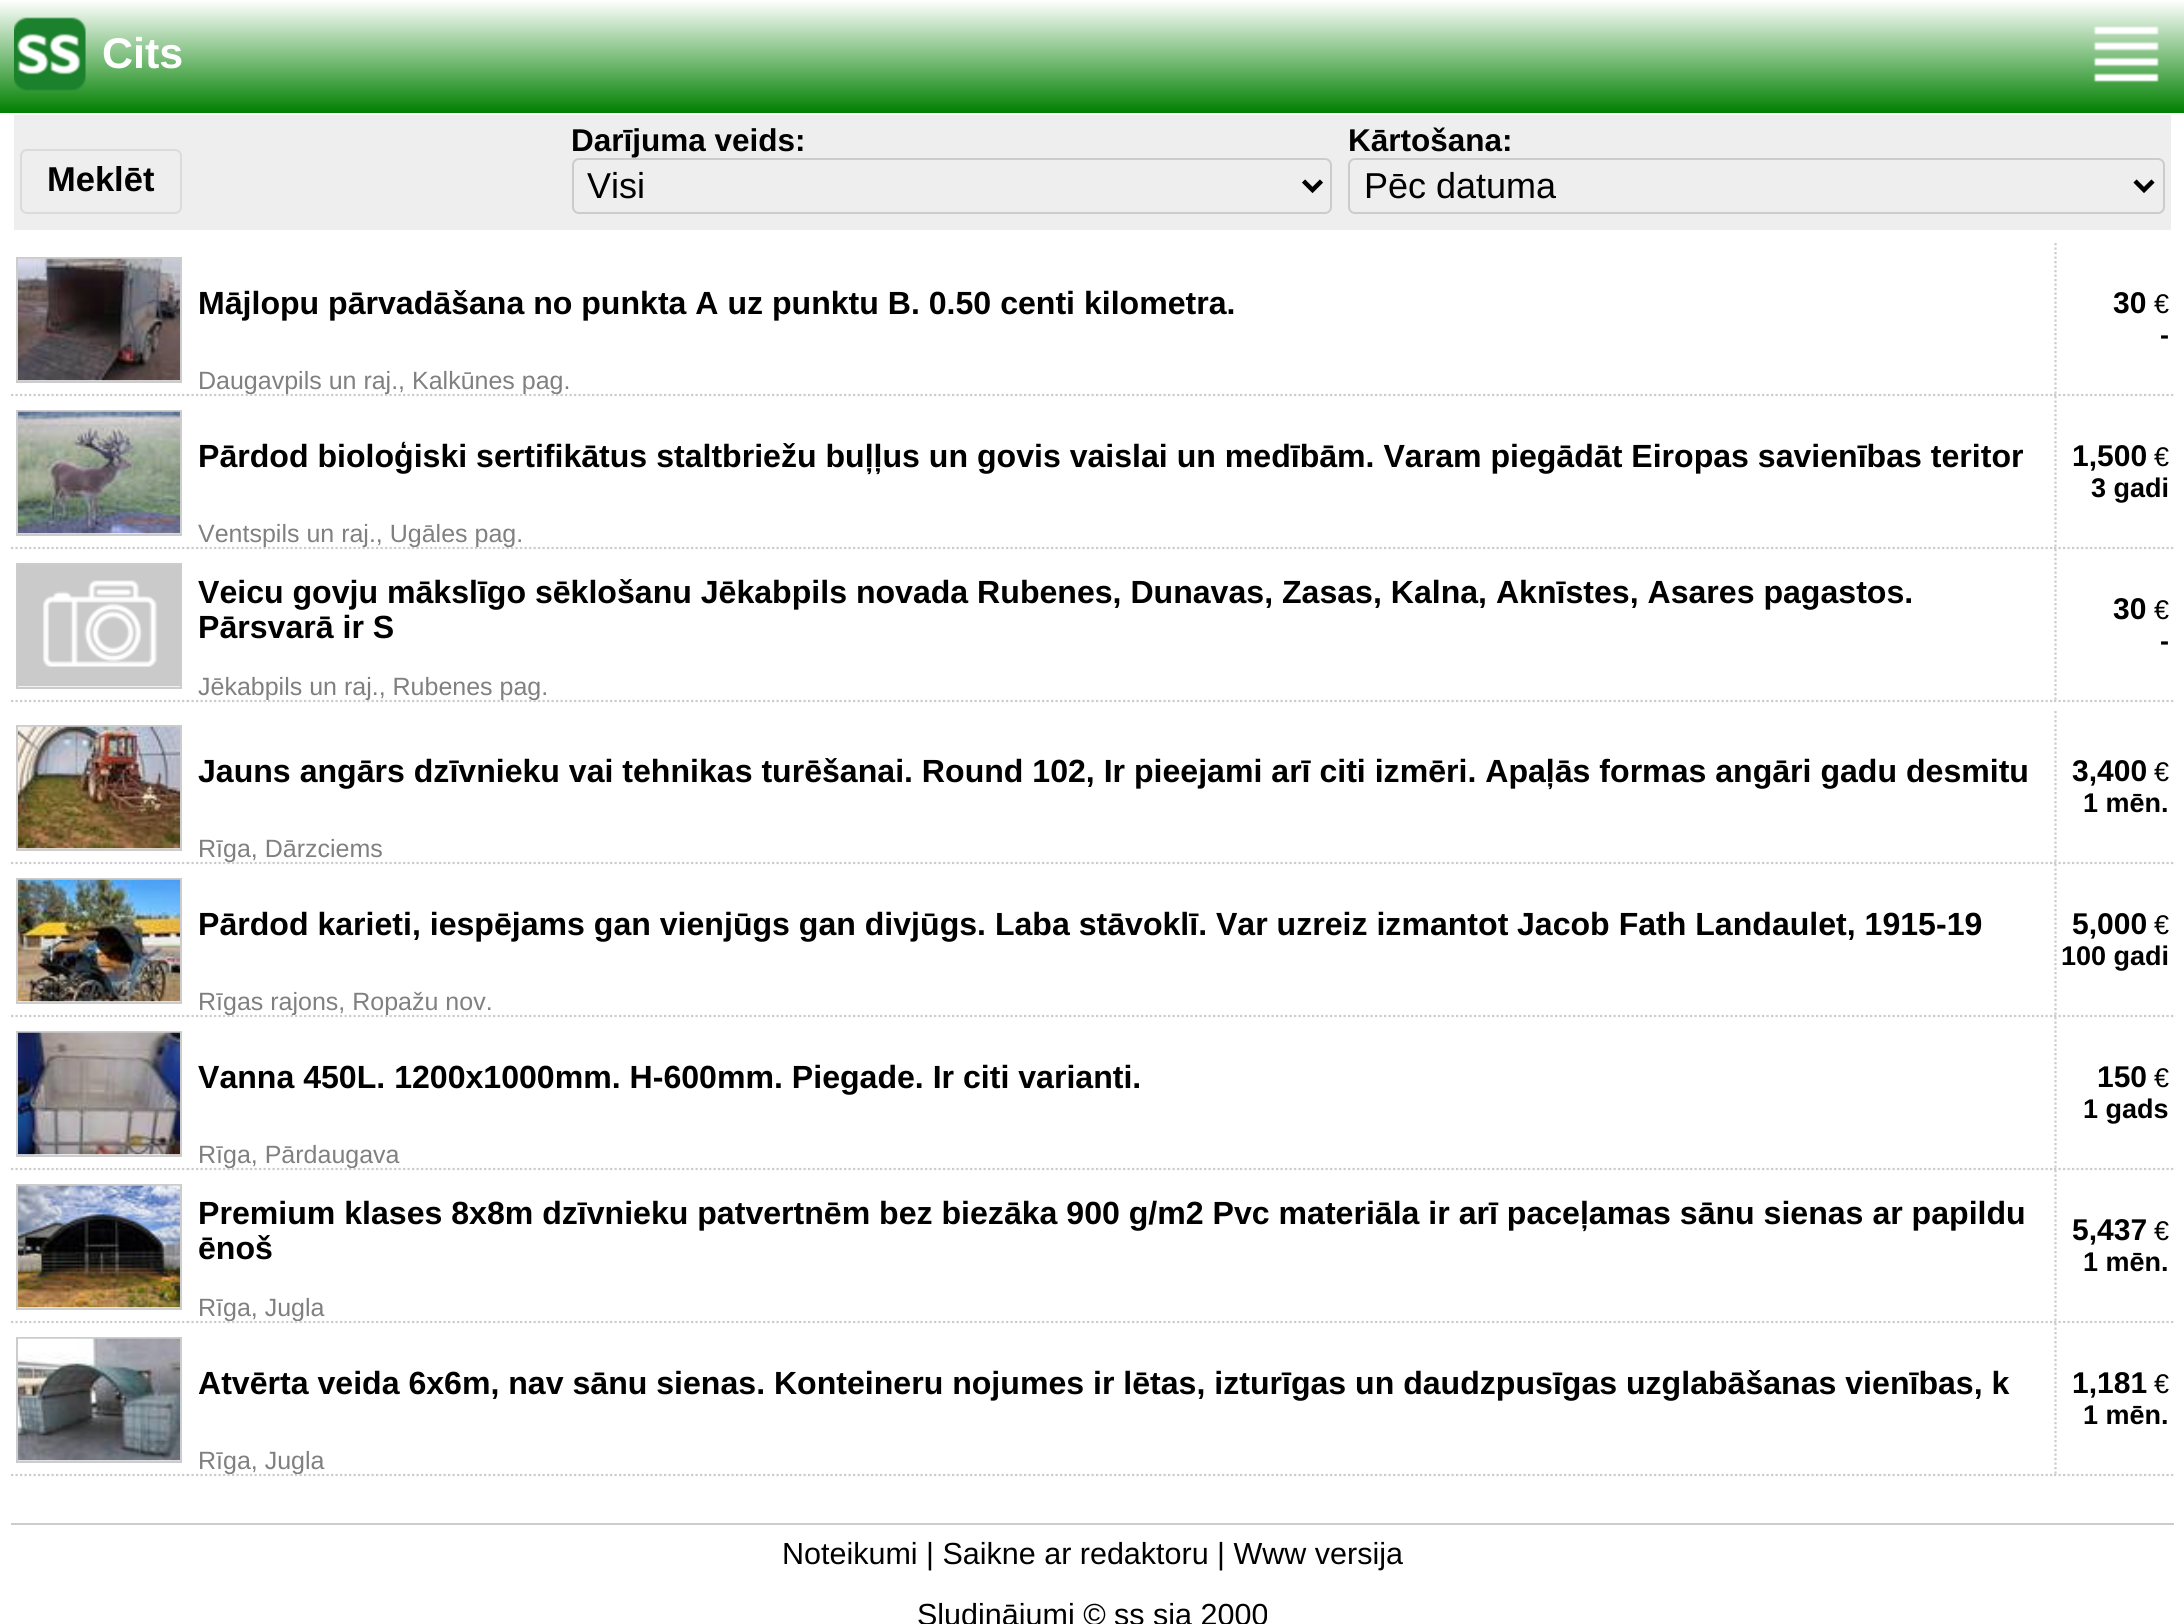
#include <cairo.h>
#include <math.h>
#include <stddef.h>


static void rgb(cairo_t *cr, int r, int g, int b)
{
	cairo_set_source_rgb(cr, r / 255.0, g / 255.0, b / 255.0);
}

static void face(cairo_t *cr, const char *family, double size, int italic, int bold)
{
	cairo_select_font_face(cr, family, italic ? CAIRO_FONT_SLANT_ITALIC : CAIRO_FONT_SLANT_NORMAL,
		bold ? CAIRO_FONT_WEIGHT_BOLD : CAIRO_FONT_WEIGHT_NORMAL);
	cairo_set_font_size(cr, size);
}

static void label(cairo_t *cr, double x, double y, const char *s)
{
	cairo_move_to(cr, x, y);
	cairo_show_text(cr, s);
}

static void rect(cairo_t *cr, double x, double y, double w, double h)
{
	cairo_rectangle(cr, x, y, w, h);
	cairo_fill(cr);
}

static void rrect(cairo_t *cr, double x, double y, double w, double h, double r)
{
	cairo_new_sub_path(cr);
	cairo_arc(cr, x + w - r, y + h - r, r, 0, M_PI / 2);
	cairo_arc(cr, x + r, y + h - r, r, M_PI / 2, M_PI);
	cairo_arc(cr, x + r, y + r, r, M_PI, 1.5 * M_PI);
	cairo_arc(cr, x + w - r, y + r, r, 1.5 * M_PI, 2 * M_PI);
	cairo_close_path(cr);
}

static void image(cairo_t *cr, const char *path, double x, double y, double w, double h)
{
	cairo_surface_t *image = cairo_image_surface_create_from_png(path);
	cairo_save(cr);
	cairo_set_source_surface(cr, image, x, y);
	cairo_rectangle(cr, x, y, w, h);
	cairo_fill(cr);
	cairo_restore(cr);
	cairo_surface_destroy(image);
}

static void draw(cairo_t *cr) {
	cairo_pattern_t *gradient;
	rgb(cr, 255, 255, 255);
	cairo_paint(cr);
	gradient = cairo_pattern_create_linear(1092, 0, 1092, 113);
	cairo_pattern_add_color_stop_rgba(gradient, 0, 1, 1, 1, 1);
	cairo_pattern_add_color_stop_rgba(gradient, 1, 0, 0.502, 0, 1);
	cairo_set_source(cr, gradient);
	cairo_pattern_destroy(gradient);
	rect(cr, 0, 1, 2184, 112);
	image(cr, "image0.png", 14, 17, 72, 74);
	face(cr, "Liberation Sans", 43, 0, 1);
	rgb(cr, 255, 255, 255);
	label(cr, 102, 68, "Cits");
	image(cr, "image1.png", 2093, 26, 66, 57);
	rgb(cr, 238, 238, 238);
	rect(cr, 14, 115, 2157, 115);
	rrect(cr, 21, 150, 160, 63, 6);
	rgb(cr, 219, 219, 219);
	cairo_stroke(cr);
	face(cr, "Liberation Sans", 34.5, 0, 1);
	rgb(cr, 0, 0, 0);
	label(cr, 47, 191, "Meklēt");
	face(cr, "Liberation Sans", 31.5, 0, 1);
	label(cr, 571, 151, "Darījuma veids:");
	rrect(cr, 573, 159, 758, 54, 6);
	rgb(cr, 204, 204, 204);
	cairo_stroke(cr);
	cairo_new_path(cr);
	cairo_move_to(cr, 1303.5, 181);
	cairo_line_to(cr, 1312.5, 190);
	cairo_line_to(cr, 1321.5, 181);
	rgb(cr, 0, 0, 0);
	cairo_set_line_width(cr, 4.5);
	cairo_stroke(cr);
	face(cr, "Liberation Sans", 36, 0, 0);
	label(cr, 587, 198, "Visi");
	face(cr, "Liberation Sans", 31.5, 0, 1);
	label(cr, 1348, 151, "Kārtošana:");
	rrect(cr, 1349, 159, 815, 54, 6);
	rgb(cr, 204, 204, 204);
	cairo_set_line_width(cr, 2);
	cairo_stroke(cr);
	cairo_new_path(cr);
	cairo_move_to(cr, 2135, 181);
	cairo_line_to(cr, 2144, 190);
	cairo_line_to(cr, 2153, 181);
	rgb(cr, 0, 0, 0);
	cairo_set_line_width(cr, 4.5);
	cairo_stroke(cr);
	face(cr, "Liberation Sans", 36, 0, 0);
	label(cr, 1364, 198, "Pēc datuma");
	cairo_new_path(cr);
	cairo_move_to(cr, 11, 395);
	cairo_line_to(cr, 187, 395);
	rgb(cr, 204, 204, 204);
	cairo_set_line_width(cr, 2.2);
	cairo_set_dash(cr, (double[]){2.25, 2.25}, 2, 0);
	cairo_stroke(cr);
	cairo_rectangle(cr, 17, 258, 164, 124);
	cairo_set_line_width(cr, 2);
	cairo_set_dash(cr, NULL, 0, 0);
	cairo_stroke(cr);
	image(cr, "image2.png", 18, 258, 162, 123);
	cairo_new_path(cr);
	cairo_move_to(cr, 187, 395);
	cairo_line_to(cr, 2054, 395);
	cairo_set_line_width(cr, 2.2);
	cairo_set_dash(cr, (double[]){2.25, 2.25}, 2, 0);
	cairo_stroke(cr);
	face(cr, "Liberation Sans", 32.08, 0, 1);
	rgb(cr, 0, 0, 0);
	label(cr, 198, 314, "Mājlopu pārvadāšana no punkta A uz punktu B. 0.50 centi kilometra.");
	cairo_save(cr);
	cairo_rectangle(cr, 187, 243, 1867, 151);
	cairo_clip(cr);
	face(cr, "Liberation Sans", 25, 0, 0);
	rgb(cr, 128, 128, 128);
	label(cr, 198, 389, "Daugavpils un raj., Kalkūnes pag.");
	cairo_restore(cr);
	cairo_new_path(cr);
	cairo_move_to(cr, 2054, 395);
	cairo_line_to(cr, 2173.5, 395);
	rgb(cr, 204, 204, 204);
	cairo_stroke(cr);
	cairo_new_path(cr);
	cairo_move_to(cr, 2055.5, 243);
	cairo_line_to(cr, 2055.5, 396);
	cairo_stroke(cr);
	face(cr, "Liberation Sans", 30, 0, 1);
	rgb(cr, 0, 0, 0);
	label(cr, 2113, 313, "30");
	face(cr, "Liberation Sans", 27, 0, 0);
	label(cr, 2154, 313, "€");
	face(cr, "Liberation Sans", 27, 0, 1);
	label(cr, 2160, 344, "-");
	cairo_new_path(cr);
	cairo_move_to(cr, 11, 548);
	cairo_line_to(cr, 187, 548);
	rgb(cr, 204, 204, 204);
	cairo_stroke(cr);
	cairo_rectangle(cr, 17, 411, 164, 124);
	cairo_set_line_width(cr, 2);
	cairo_set_dash(cr, NULL, 0, 0);
	cairo_stroke(cr);
	image(cr, "image3.png", 18, 411, 162, 123);
	cairo_new_path(cr);
	cairo_move_to(cr, 187, 548);
	cairo_line_to(cr, 2054, 548);
	cairo_set_line_width(cr, 2.2);
	cairo_set_dash(cr, (double[]){2.25, 2.25}, 2, 0);
	cairo_stroke(cr);
	face(cr, "Liberation Sans", 32.08, 0, 1);
	rgb(cr, 0, 0, 0);
	label(cr, 198, 467, "Pārdod bioloģiski sertifikātus staltbriežu buļļus un govis vaislai un medībām. Varam piegādāt Eiropas savienības teritor");
	cairo_save(cr);
	cairo_rectangle(cr, 187, 396, 1867, 151);
	cairo_clip(cr);
	face(cr, "Liberation Sans", 25, 0, 0);
	rgb(cr, 128, 128, 128);
	label(cr, 198, 542, "Ventspils un raj., Ugāles pag.");
	cairo_restore(cr);
	cairo_new_path(cr);
	cairo_move_to(cr, 2054, 548);
	cairo_line_to(cr, 2173.5, 548);
	rgb(cr, 204, 204, 204);
	cairo_stroke(cr);
	cairo_new_path(cr);
	cairo_move_to(cr, 2055.5, 396);
	cairo_line_to(cr, 2055.5, 549);
	cairo_stroke(cr);
	face(cr, "Liberation Sans", 30, 0, 1);
	rgb(cr, 0, 0, 0);
	label(cr, 2072, 466, "1,500");
	face(cr, "Liberation Sans", 27, 0, 0);
	label(cr, 2154, 466, "€");
	face(cr, "Liberation Sans", 27, 0, 1);
	label(cr, 2091, 497, "3 gadi");
	cairo_new_path(cr);
	cairo_move_to(cr, 11, 701);
	cairo_line_to(cr, 187, 701);
	rgb(cr, 204, 204, 204);
	cairo_stroke(cr);
	cairo_rectangle(cr, 17, 564, 164, 124);
	cairo_set_line_width(cr, 2);
	cairo_set_dash(cr, NULL, 0, 0);
	cairo_stroke(cr);
	image(cr, "image4.png", 18, 565, 162, 122);
	cairo_new_path(cr);
	cairo_move_to(cr, 187, 701);
	cairo_line_to(cr, 2054, 701);
	cairo_set_line_width(cr, 2.2);
	cairo_set_dash(cr, (double[]){2.25, 2.25}, 2, 0);
	cairo_stroke(cr);
	face(cr, "Liberation Sans", 32.08, 0, 1);
	rgb(cr, 0, 0, 0);
	label(cr, 198, 603, "Veicu govju mākslīgo sēklošanu Jēkabpils novada Rubenes, Dunavas, Zasas, Kalna, Aknīstes, Asares pagastos.");
	label(cr, 198, 638, "Pārsvarā ir S");
	cairo_save(cr);
	cairo_rectangle(cr, 187, 549, 1867, 151);
	cairo_clip(cr);
	face(cr, "Liberation Sans", 25, 0, 0);
	rgb(cr, 128, 128, 128);
	label(cr, 198, 695, "Jēkabpils un raj., Rubenes pag.");
	cairo_restore(cr);
	cairo_new_path(cr);
	cairo_move_to(cr, 2054, 701);
	cairo_line_to(cr, 2173.5, 701);
	rgb(cr, 204, 204, 204);
	cairo_stroke(cr);
	cairo_new_path(cr);
	cairo_move_to(cr, 2055.5, 549);
	cairo_line_to(cr, 2055.5, 702);
	cairo_stroke(cr);
	face(cr, "Liberation Sans", 30, 0, 1);
	rgb(cr, 0, 0, 0);
	label(cr, 2113, 619, "30");
	face(cr, "Liberation Sans", 27, 0, 0);
	label(cr, 2154, 619, "€");
	face(cr, "Liberation Sans", 27, 0, 1);
	label(cr, 2160, 650, "-");
	cairo_new_path(cr);
	cairo_move_to(cr, 11, 863);
	cairo_line_to(cr, 187, 863);
	rgb(cr, 204, 204, 204);
	cairo_stroke(cr);
	cairo_rectangle(cr, 17, 726, 164, 124);
	cairo_set_line_width(cr, 2);
	cairo_set_dash(cr, NULL, 0, 0);
	cairo_stroke(cr);
	image(cr, "image5.png", 18, 726, 162, 123);
	cairo_new_path(cr);
	cairo_move_to(cr, 187, 863);
	cairo_line_to(cr, 2054, 863);
	cairo_set_line_width(cr, 2.2);
	cairo_set_dash(cr, (double[]){2.25, 2.25}, 2, 0);
	cairo_stroke(cr);
	face(cr, "Liberation Sans", 32.08, 0, 1);
	rgb(cr, 0, 0, 0);
	label(cr, 198, 782, "Jauns angārs dzīvnieku vai tehnikas turēšanai. Round 102, Ir pieejami arī citi izmēri. Apaļās formas angāri gadu desmitu");
	face(cr, "Liberation Sans", 25, 0, 0);
	rgb(cr, 128, 128, 128);
	label(cr, 198, 857, "Rīga, Dārzciems");
	cairo_new_path(cr);
	cairo_move_to(cr, 2054, 863);
	cairo_line_to(cr, 2173.5, 863);
	rgb(cr, 204, 204, 204);
	cairo_stroke(cr);
	cairo_new_path(cr);
	cairo_move_to(cr, 2055.5, 711);
	cairo_line_to(cr, 2055.5, 864);
	cairo_stroke(cr);
	face(cr, "Liberation Sans", 30, 0, 1);
	rgb(cr, 0, 0, 0);
	label(cr, 2072, 781, "3,400");
	face(cr, "Liberation Sans", 27, 0, 0);
	label(cr, 2154, 781, "€");
	face(cr, "Liberation Sans", 27, 0, 1);
	label(cr, 2083, 812, "1 mēn.");
	cairo_new_path(cr);
	cairo_move_to(cr, 11, 1016);
	cairo_line_to(cr, 187, 1016);
	rgb(cr, 204, 204, 204);
	cairo_stroke(cr);
	cairo_rectangle(cr, 17, 879, 164, 124);
	cairo_set_line_width(cr, 2);
	cairo_set_dash(cr, NULL, 0, 0);
	cairo_stroke(cr);
	image(cr, "image6.png", 18, 879, 162, 123);
	cairo_new_path(cr);
	cairo_move_to(cr, 187, 1016);
	cairo_line_to(cr, 2054, 1016);
	cairo_set_line_width(cr, 2.2);
	cairo_set_dash(cr, (double[]){2.25, 2.25}, 2, 0);
	cairo_stroke(cr);
	face(cr, "Liberation Sans", 32.08, 0, 1);
	rgb(cr, 0, 0, 0);
	label(cr, 198, 935, "Pārdod karieti, iespējams gan vienjūgs gan divjūgs. Laba stāvoklī. Var uzreiz izmantot");
	label(cr, 1517, 935, "Jacob Fath Landaulet, 1915-19");
	cairo_save(cr);
	cairo_rectangle(cr, 187, 864, 1867, 151);
	cairo_clip(cr);
	face(cr, "Liberation Sans", 25, 0, 0);
	rgb(cr, 128, 128, 128);
	label(cr, 198, 1010, "Rīgas rajons, Ropažu nov.");
	cairo_restore(cr);
	cairo_new_path(cr);
	cairo_move_to(cr, 2054, 1016);
	cairo_line_to(cr, 2173.5, 1016);
	rgb(cr, 204, 204, 204);
	cairo_stroke(cr);
	cairo_new_path(cr);
	cairo_move_to(cr, 2055.5, 864);
	cairo_line_to(cr, 2055.5, 1017);
	cairo_stroke(cr);
	face(cr, "Liberation Sans", 30, 0, 1);
	rgb(cr, 0, 0, 0);
	label(cr, 2072, 934, "5,000");
	face(cr, "Liberation Sans", 27, 0, 0);
	label(cr, 2154, 934, "€");
	face(cr, "Liberation Sans", 27, 0, 1);
	label(cr, 2061, 965, "100 gadi");
	cairo_new_path(cr);
	cairo_move_to(cr, 11, 1169);
	cairo_line_to(cr, 187, 1169);
	rgb(cr, 204, 204, 204);
	cairo_stroke(cr);
	cairo_rectangle(cr, 17, 1032, 164, 124);
	cairo_set_line_width(cr, 2);
	cairo_set_dash(cr, NULL, 0, 0);
	cairo_stroke(cr);
	image(cr, "image7.png", 18, 1032, 162, 123);
	cairo_new_path(cr);
	cairo_move_to(cr, 187, 1169);
	cairo_line_to(cr, 2054, 1169);
	cairo_set_line_width(cr, 2.2);
	cairo_set_dash(cr, (double[]){2.25, 2.25}, 2, 0);
	cairo_stroke(cr);
	face(cr, "Liberation Sans", 32.08, 0, 1);
	rgb(cr, 0, 0, 0);
	label(cr, 198, 1088, "Vanna 450L. 1200x1000mm. H-600mm. Piegade. Ir citi varianti.");
	cairo_save(cr);
	cairo_rectangle(cr, 187, 1017, 1867, 151);
	cairo_clip(cr);
	face(cr, "Liberation Sans", 25, 0, 0);
	rgb(cr, 128, 128, 128);
	label(cr, 198, 1163, "Rīga, Pārdaugava");
	cairo_restore(cr);
	cairo_new_path(cr);
	cairo_move_to(cr, 2054, 1169);
	cairo_line_to(cr, 2173.5, 1169);
	rgb(cr, 204, 204, 204);
	cairo_stroke(cr);
	cairo_new_path(cr);
	cairo_move_to(cr, 2055.5, 1017);
	cairo_line_to(cr, 2055.5, 1170);
	cairo_stroke(cr);
	face(cr, "Liberation Sans", 30, 0, 1);
	rgb(cr, 0, 0, 0);
	label(cr, 2097, 1087, "150");
	face(cr, "Liberation Sans", 27, 0, 0);
	label(cr, 2154, 1087, "€");
	face(cr, "Liberation Sans", 27, 0, 1);
	label(cr, 2083, 1118, "1 gads");
	cairo_new_path(cr);
	cairo_move_to(cr, 11, 1322);
	cairo_line_to(cr, 187, 1322);
	rgb(cr, 204, 204, 204);
	cairo_stroke(cr);
	cairo_rectangle(cr, 17, 1185, 164, 124);
	cairo_set_line_width(cr, 2);
	cairo_set_dash(cr, NULL, 0, 0);
	cairo_stroke(cr);
	image(cr, "image8.png", 18, 1185, 162, 123);
	cairo_new_path(cr);
	cairo_move_to(cr, 187, 1322);
	cairo_line_to(cr, 2054, 1322);
	cairo_set_line_width(cr, 2.2);
	cairo_set_dash(cr, (double[]){2.25, 2.25}, 2, 0);
	cairo_stroke(cr);
	face(cr, "Liberation Sans", 32.08, 0, 1);
	rgb(cr, 0, 0, 0);
	label(cr, 198, 1224, "Premium klases 8x8m dzīvnieku patvertnēm bez biezāka 900 g/m2 Pvc materiāla ir arī paceļamas sānu sienas ar papildu");
	label(cr, 198, 1259, "ēnoš");
	cairo_save(cr);
	cairo_rectangle(cr, 187, 1170, 1867, 151);
	cairo_clip(cr);
	face(cr, "Liberation Sans", 25, 0, 0);
	rgb(cr, 128, 128, 128);
	label(cr, 198, 1316, "Rīga, Jugla");
	cairo_restore(cr);
	cairo_new_path(cr);
	cairo_move_to(cr, 2054, 1322);
	cairo_line_to(cr, 2173.5, 1322);
	rgb(cr, 204, 204, 204);
	cairo_stroke(cr);
	cairo_new_path(cr);
	cairo_move_to(cr, 2055.5, 1170);
	cairo_line_to(cr, 2055.5, 1323);
	cairo_stroke(cr);
	face(cr, "Liberation Sans", 30, 0, 1);
	rgb(cr, 0, 0, 0);
	label(cr, 2072, 1240, "5,437");
	face(cr, "Liberation Sans", 27, 0, 0);
	label(cr, 2154, 1240, "€");
	face(cr, "Liberation Sans", 27, 0, 1);
	label(cr, 2083, 1271, "1 mēn.");
	cairo_new_path(cr);
	cairo_move_to(cr, 11, 1475);
	cairo_line_to(cr, 187, 1475);
	rgb(cr, 204, 204, 204);
	cairo_stroke(cr);
	cairo_rectangle(cr, 17, 1338, 164, 124);
	cairo_set_line_width(cr, 2);
	cairo_set_dash(cr, NULL, 0, 0);
	cairo_stroke(cr);
	image(cr, "image9.png", 18, 1338, 162, 123);
	cairo_new_path(cr);
	cairo_move_to(cr, 187, 1475);
	cairo_line_to(cr, 2054, 1475);
	cairo_set_line_width(cr, 2.2);
	cairo_set_dash(cr, (double[]){2.25, 2.25}, 2, 0);
	cairo_stroke(cr);
	face(cr, "Liberation Sans", 32.08, 0, 1);
	rgb(cr, 0, 0, 0);
	label(cr, 198, 1394, "Atvērta veida 6x6m, nav sānu sienas. Konteineru nojumes ir lētas, izturīgas un daudzpusīgas uzglabāšanas vienības, k");
	cairo_save(cr);
	cairo_rectangle(cr, 187, 1323, 1867, 151);
	cairo_clip(cr);
	face(cr, "Liberation Sans", 25, 0, 0);
	rgb(cr, 128, 128, 128);
	label(cr, 198, 1469, "Rīga, Jugla");
	cairo_restore(cr);
	cairo_new_path(cr);
	cairo_move_to(cr, 2054, 1475);
	cairo_line_to(cr, 2173.5, 1475);
	rgb(cr, 204, 204, 204);
	cairo_stroke(cr);
	cairo_new_path(cr);
	cairo_move_to(cr, 2055.5, 1323);
	cairo_line_to(cr, 2055.5, 1476);
	cairo_stroke(cr);
	face(cr, "Liberation Sans", 30, 0, 1);
	rgb(cr, 0, 0, 0);
	label(cr, 2072, 1393, "1,181");
	face(cr, "Liberation Sans", 27, 0, 0);
	label(cr, 2154, 1393, "€");
	face(cr, "Liberation Sans", 27, 0, 1);
	label(cr, 2083, 1424, "1 mēn.");
	rgb(cr, 204, 204, 204);
	rect(cr, 11, 1523, 2163, 2);
	face(cr, "Liberation Sans", 30.5, 0, 0);
	rgb(cr, 0, 0, 0);
	label(cr, 782, 1564, "Noteikumi | Saikne ar redaktoru | Www versija");
	label(cr, 917, 1625, "Sludinājumi © ss sia 2000");
}

int main(void) {
	cairo_surface_t *surface = cairo_image_surface_create(CAIRO_FORMAT_RGB24, 2184, 1624);
	cairo_t *cr = cairo_create(surface);
	cairo_font_options_t *options = cairo_font_options_create();
	cairo_font_options_set_hint_metrics(options, CAIRO_HINT_METRICS_OFF);
	cairo_font_options_set_hint_style(options, CAIRO_HINT_STYLE_NONE);
	cairo_set_font_options(cr, options);
	cairo_set_miter_limit(cr, 4);
	draw(cr);
	cairo_surface_write_to_png(surface, "render.png");
	cairo_font_options_destroy(options);
	cairo_destroy(cr);
	cairo_surface_destroy(surface);
	return 0;
}
